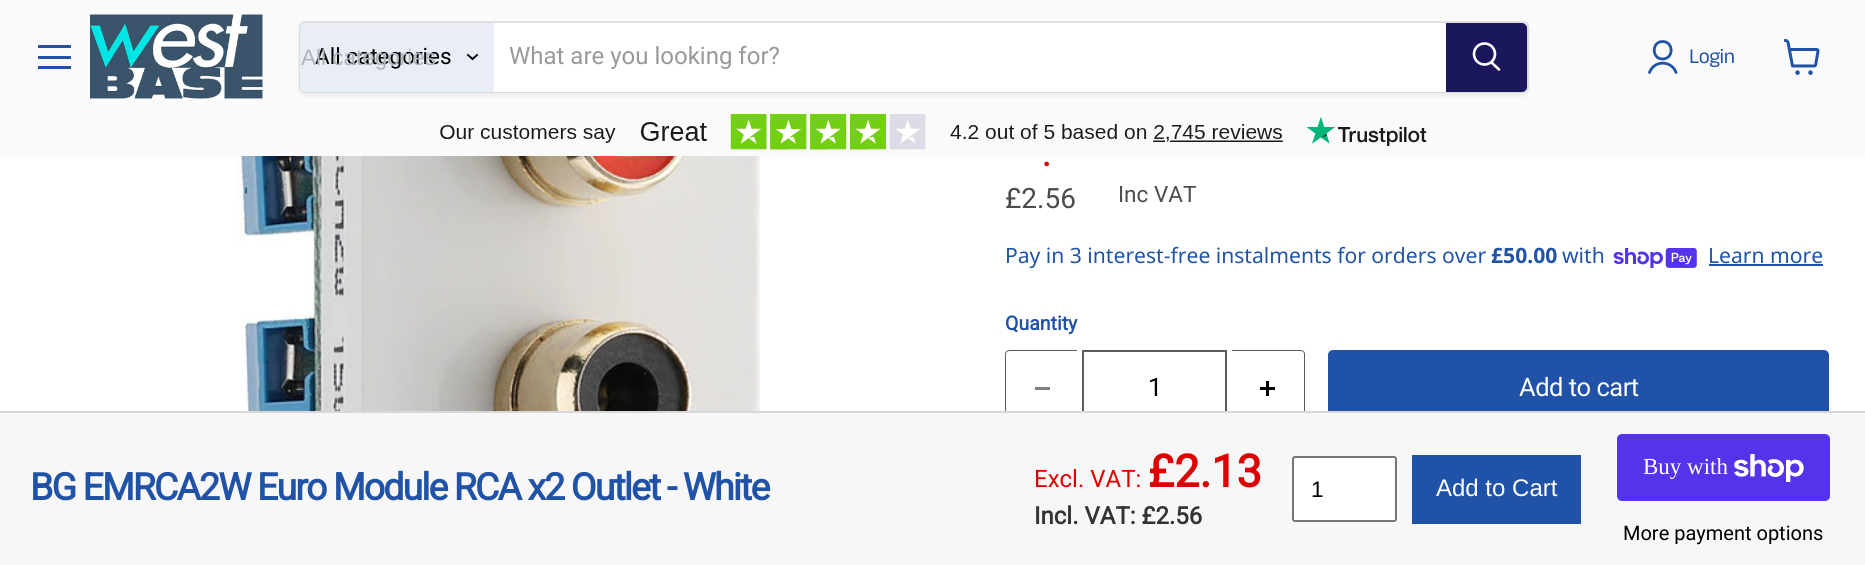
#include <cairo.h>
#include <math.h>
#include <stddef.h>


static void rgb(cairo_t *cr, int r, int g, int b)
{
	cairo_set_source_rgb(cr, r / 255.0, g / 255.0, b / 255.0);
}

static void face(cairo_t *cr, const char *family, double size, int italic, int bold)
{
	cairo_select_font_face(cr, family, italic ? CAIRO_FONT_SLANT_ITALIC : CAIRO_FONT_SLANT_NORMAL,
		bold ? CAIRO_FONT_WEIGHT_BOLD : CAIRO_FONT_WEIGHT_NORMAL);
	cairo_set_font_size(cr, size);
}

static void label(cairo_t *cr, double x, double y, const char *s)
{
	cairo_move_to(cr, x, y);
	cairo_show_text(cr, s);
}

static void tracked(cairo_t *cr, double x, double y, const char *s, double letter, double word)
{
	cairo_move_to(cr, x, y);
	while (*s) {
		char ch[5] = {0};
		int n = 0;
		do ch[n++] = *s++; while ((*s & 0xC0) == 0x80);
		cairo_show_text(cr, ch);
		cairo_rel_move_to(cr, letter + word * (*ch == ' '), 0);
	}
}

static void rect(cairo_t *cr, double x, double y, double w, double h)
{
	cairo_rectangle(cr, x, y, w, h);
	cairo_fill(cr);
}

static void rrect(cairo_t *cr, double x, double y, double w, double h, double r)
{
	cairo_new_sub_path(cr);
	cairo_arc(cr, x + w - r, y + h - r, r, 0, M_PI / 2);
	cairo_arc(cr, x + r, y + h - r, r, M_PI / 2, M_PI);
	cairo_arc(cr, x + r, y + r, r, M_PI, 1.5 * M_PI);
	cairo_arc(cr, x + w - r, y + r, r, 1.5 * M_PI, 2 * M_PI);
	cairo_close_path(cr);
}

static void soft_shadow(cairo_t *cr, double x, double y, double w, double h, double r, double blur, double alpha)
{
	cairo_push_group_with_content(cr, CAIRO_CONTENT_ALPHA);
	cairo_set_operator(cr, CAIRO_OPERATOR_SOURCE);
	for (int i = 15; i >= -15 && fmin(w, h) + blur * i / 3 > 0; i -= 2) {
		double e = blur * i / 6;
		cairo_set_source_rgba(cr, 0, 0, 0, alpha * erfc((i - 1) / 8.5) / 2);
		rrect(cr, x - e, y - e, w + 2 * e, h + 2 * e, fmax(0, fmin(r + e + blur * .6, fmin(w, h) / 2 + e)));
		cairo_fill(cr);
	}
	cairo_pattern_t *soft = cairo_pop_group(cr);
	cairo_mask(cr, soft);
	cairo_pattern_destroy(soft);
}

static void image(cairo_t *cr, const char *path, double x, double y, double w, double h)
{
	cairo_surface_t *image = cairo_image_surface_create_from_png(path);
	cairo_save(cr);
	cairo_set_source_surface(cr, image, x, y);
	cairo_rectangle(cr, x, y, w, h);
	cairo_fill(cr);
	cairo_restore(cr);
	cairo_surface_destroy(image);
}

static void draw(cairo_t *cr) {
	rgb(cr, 255, 255, 255);
	cairo_paint(cr);
	rgb(cr, 250, 250, 250);
	rect(cr, 0, 0, 1865, 156);
	rgb(cr, 32, 83, 167);
	rect(cr, 38, 45, 33, 3);
	rect(cr, 38, 56, 33, 3);
	rect(cr, 38, 66, 33, 3);
	image(cr, "image0.png", 90, 14, 173, 85);
	rgb(cr, 128, 128, 128);
	soft_shadow(cr, 299, 24, 1230, 72, 6, 2, 0.11);
	rrect(cr, 300, 22, 1228, 70, 5);
	cairo_set_source_rgba(cr, 0.502, 0.502, 0.502, 0.2);
	cairo_stroke(cr);
	rgb(cr, 233, 238, 246);
	cairo_new_path(cr);
	cairo_move_to(cr, 305, 23);
	cairo_line_to(cr, 494, 23);
	cairo_line_to(cr, 494, 92);
	cairo_line_to(cr, 305, 92);
	cairo_curve_to(cr, 302, 92, 300, 90, 300, 87);
	cairo_line_to(cr, 300, 28);
	cairo_curve_to(cr, 300, 25, 302, 23, 305, 23);
	cairo_close_path(cr);
	cairo_fill(cr);
	face(cr, "Roboto", 22.5, 0, 0);
	rgb(cr, 0, 0, 0);
	label(cr, 315, 64, "All categories");
	face(cr, "Liberation Sans", 22.5, 0, 0);
	rgb(cr, 176, 180, 186);
	label(cr, 301, 65, "All categories");
	cairo_new_path(cr);
	cairo_move_to(cr, 472.5, 59);
	cairo_line_to(cr, 477, 55);
	cairo_move_to(cr, 472.5, 59);
	cairo_line_to(cr, 468, 55);
	rgb(cr, 0, 0, 0);
	cairo_set_line_width(cr, 1.9);
	cairo_set_line_cap(cr, CAIRO_LINE_CAP_SQUARE);
	cairo_stroke(cr);
	rgb(cr, 255, 255, 255);
	rect(cr, 494, 23, 952, 69);
	face(cr, "Roboto", 24, 0, 0);
	rgb(cr, 153, 153, 153);
	label(cr, 509, 64, "What are you looking for?");
	rgb(cr, 27, 23, 93);
	cairo_new_path(cr);
	cairo_move_to(cr, 1447, 24);
	cairo_line_to(cr, 1522, 24);
	cairo_curve_to(cr, 1524, 24, 1526, 26, 1526, 28);
	cairo_line_to(cr, 1526, 87);
	cairo_curve_to(cr, 1526, 89, 1524, 91, 1522, 91);
	cairo_line_to(cr, 1447, 91);
	cairo_close_path(cr);
	cairo_fill_preserve(cr);
	cairo_set_line_width(cr, 2);
	cairo_set_line_cap(cr, CAIRO_LINE_CAP_BUTT);
	cairo_stroke(cr);
	cairo_new_path(cr);
	cairo_move_to(cr, 1499, 69.5);
	cairo_line_to(cr, 1491.5, 62.5);
	rgb(cr, 255, 255, 255);
	cairo_set_line_width(cr, 2.6);
	cairo_set_line_cap(cr, CAIRO_LINE_CAP_ROUND);
	cairo_stroke(cr);
	cairo_arc(cr, 1484.5, 54, 10.5, 0, 2 * M_PI);
	cairo_set_line_cap(cr, CAIRO_LINE_CAP_BUTT);
	cairo_stroke(cr);
	cairo_new_path(cr);
	cairo_move_to(cr, 1662.5, 59);
	cairo_curve_to(cr, 1674, 59, 1674, 41.5, 1662.5, 41.5);
	cairo_curve_to(cr, 1651.5, 41.5, 1651.5, 59, 1662.5, 59);
	cairo_close_path(cr);
	cairo_move_to(cr, 1676, 72.5);
	cairo_curve_to(cr, 1671.5, 60, 1654, 60, 1649.5, 72.5);
	rgb(cr, 32, 83, 167);
	cairo_set_line_width(cr, 2.8);
	cairo_set_line_cap(cr, CAIRO_LINE_CAP_ROUND);
	cairo_set_line_join(cr, CAIRO_LINE_JOIN_ROUND);
	cairo_stroke(cr);
	face(cr, "Anek Tamil", 21.1, 0, 0);
	tracked(cr, 1689, 63, "Login", -0.5, 0);
	image(cr, "image1.png", 1784, 39, 36, 36);
	image(cr, "image2.png", 440, 114, 987, 36);
	image(cr, "image3.png", 236, 156, 524, 255);
	face(cr, "Roboto", 33, 0, 1);
	rgb(cr, 222, 1, 1);
	label(cr, 1042, 166, ".");
	face(cr, "Roboto", 28, 0, 0);
	rgb(cr, 76, 76, 76);
	label(cr, 1005, 208, "£2.56");
	face(cr, "Roboto", 22.5, 0, 0);
	label(cr, 1118, 202, "Inc VAT");
	face(cr, "Noto Sans", 21.1, 0, 0);
	rgb(cr, 32, 83, 167);
	label(cr, 1005, 263, "Pay in 3 interest-free instalments for orders over");
	face(cr, "Noto Sans", 21.1, 0, 1);
	label(cr, 1491, 263, "£50.00");
	face(cr, "Noto Sans", 21.1, 0, 0);
	label(cr, 1562, 263, "with");
	image(cr, "image4.png", 1613, 248, 84, 21);
	label(cr, 1708, 263, "Learn more");
	rect(cr, 1709, 264, 114, 2);
	face(cr, "Roboto", 19.5, 0, 1);
	label(cr, 1005, 330, "Quantity");
	rgb(cr, 92, 92, 92);
	cairo_set_fill_rule(cr, CAIRO_FILL_RULE_EVEN_ODD);
	cairo_new_path(cr);
	cairo_move_to(cr, 1010, 350);
	cairo_line_to(cr, 1077, 350);
	cairo_line_to(cr, 1077, 426);
	cairo_line_to(cr, 1010, 426);
	cairo_curve_to(cr, 1007, 426, 1005, 424, 1005, 422);
	cairo_line_to(cr, 1005, 354);
	cairo_curve_to(cr, 1005, 352, 1007, 350, 1010, 350);
	cairo_close_path(cr);
	cairo_move_to(cr, 1010, 351);
	cairo_line_to(cr, 1077, 351);
	cairo_line_to(cr, 1077, 424);
	cairo_line_to(cr, 1010, 424);
	cairo_curve_to(cr, 1008, 424, 1006, 423, 1006, 422);
	cairo_line_to(cr, 1006, 354);
	cairo_curve_to(cr, 1006, 352, 1008, 351, 1010, 351);
	cairo_close_path(cr);
	cairo_fill(cr);
	rgb(cr, 128, 128, 128);
	rect(cr, 1035, 387, 15, 3);
	cairo_rectangle(cr, 1083, 351, 143, 74);
	rgb(cr, 92, 92, 92);
	cairo_set_line_width(cr, 2);
	cairo_set_line_cap(cr, CAIRO_LINE_CAP_BUTT);
	cairo_set_line_join(cr, CAIRO_LINE_JOIN_MITER);
	cairo_stroke(cr);
	face(cr, "Roboto", 25.5, 0, 0);
	rgb(cr, 0, 0, 0);
	label(cr, 1148, 396, "1");
	rgb(cr, 92, 92, 92);
	cairo_new_path(cr);
	cairo_move_to(cr, 1232, 350);
	cairo_line_to(cr, 1300, 350);
	cairo_curve_to(cr, 1303, 350, 1305, 352, 1305, 354);
	cairo_line_to(cr, 1305, 422);
	cairo_curve_to(cr, 1305, 424, 1303, 426, 1300, 426);
	cairo_line_to(cr, 1232, 426);
	cairo_close_path(cr);
	cairo_move_to(cr, 1232, 351);
	cairo_line_to(cr, 1300, 351);
	cairo_curve_to(cr, 1302, 351, 1304, 352, 1304, 354);
	cairo_line_to(cr, 1304, 422);
	cairo_curve_to(cr, 1304, 423, 1302, 424, 1300, 424);
	cairo_line_to(cr, 1232, 424);
	cairo_close_path(cr);
	cairo_fill(cr);
	image(cr, "image5.png", 1260, 381, 15, 15);
	rgb(cr, 32, 83, 167);
	rrect(cr, 1329, 351, 499, 74, 4);
	cairo_fill_preserve(cr);
	cairo_stroke(cr);
	rgb(cr, 255, 255, 255);
	tracked(cr, 1519, 396, "Add to cart", -0.5, 0);
	rgb(cr, 247, 247, 247);
	rect(cr, 0, 413, 1865, 152);
	rgb(cr, 216, 216, 216);
	rect(cr, 0, 411, 1865, 2);
	face(cr, "Roboto", 37.5, 0, 1);
	rgb(cr, 32, 83, 167);
	tracked(cr, 30, 500, "BG EMRCA2W Euro Module RCA x2 Outlet - White", -1.9, 0);
	face(cr, "Roboto", 24, 0, 0);
	rgb(cr, 222, 1, 1);
	label(cr, 1034, 487, "Excl. VAT:");
	face(cr, "Roboto", 45, 0, 1);
	label(cr, 1148, 487, "£2.13");
	face(cr, "Roboto", 24, 0, 1);
	rgb(cr, 51, 51, 51);
	label(cr, 1034, 524, "Incl. VAT: £2.56");
	rgb(cr, 255, 255, 255);
	rrect(cr, 1293, 457, 103, 64, 2);
	cairo_fill_preserve(cr);
	rgb(cr, 118, 118, 118);
	cairo_stroke(cr);
	face(cr, "Liberation Sans", 22.5, 0, 0);
	rgb(cr, 0, 0, 0);
	label(cr, 1311, 497, "1");
	rgb(cr, 32, 83, 167);
	rect(cr, 1412, 455, 169, 69);
	face(cr, "Liberation Sans", 24, 0, 0);
	rgb(cr, 255, 255, 255);
	label(cr, 1436, 496, "Add to Cart");
	rgb(cr, 84, 51, 235);
	rrect(cr, 1617, 434, 213, 67, 5);
	cairo_fill(cr);
	face(cr, "Liberation Serif", 23, 0, 0);
	rgb(cr, 255, 255, 255);
	label(cr, 1643, 474, "Buy with");
	image(cr, "image6.png", 1734, 454, 70, 28);
	face(cr, "Roboto", 20, 0, 0);
	rgb(cr, 0, 0, 0);
	label(cr, 1623, 540, "More payment options");
}

int main(void) {
	cairo_surface_t *surface = cairo_image_surface_create(CAIRO_FORMAT_RGB24, 1865, 565);
	cairo_t *cr = cairo_create(surface);
	cairo_font_options_t *options = cairo_font_options_create();
	cairo_font_options_set_hint_metrics(options, CAIRO_HINT_METRICS_OFF);
	cairo_font_options_set_hint_style(options, CAIRO_HINT_STYLE_NONE);
	cairo_set_font_options(cr, options);
	cairo_set_miter_limit(cr, 4);
	draw(cr);
	cairo_surface_write_to_png(surface, "render.png");
	cairo_font_options_destroy(options);
	cairo_destroy(cr);
	cairo_surface_destroy(surface);
	return 0;
}
